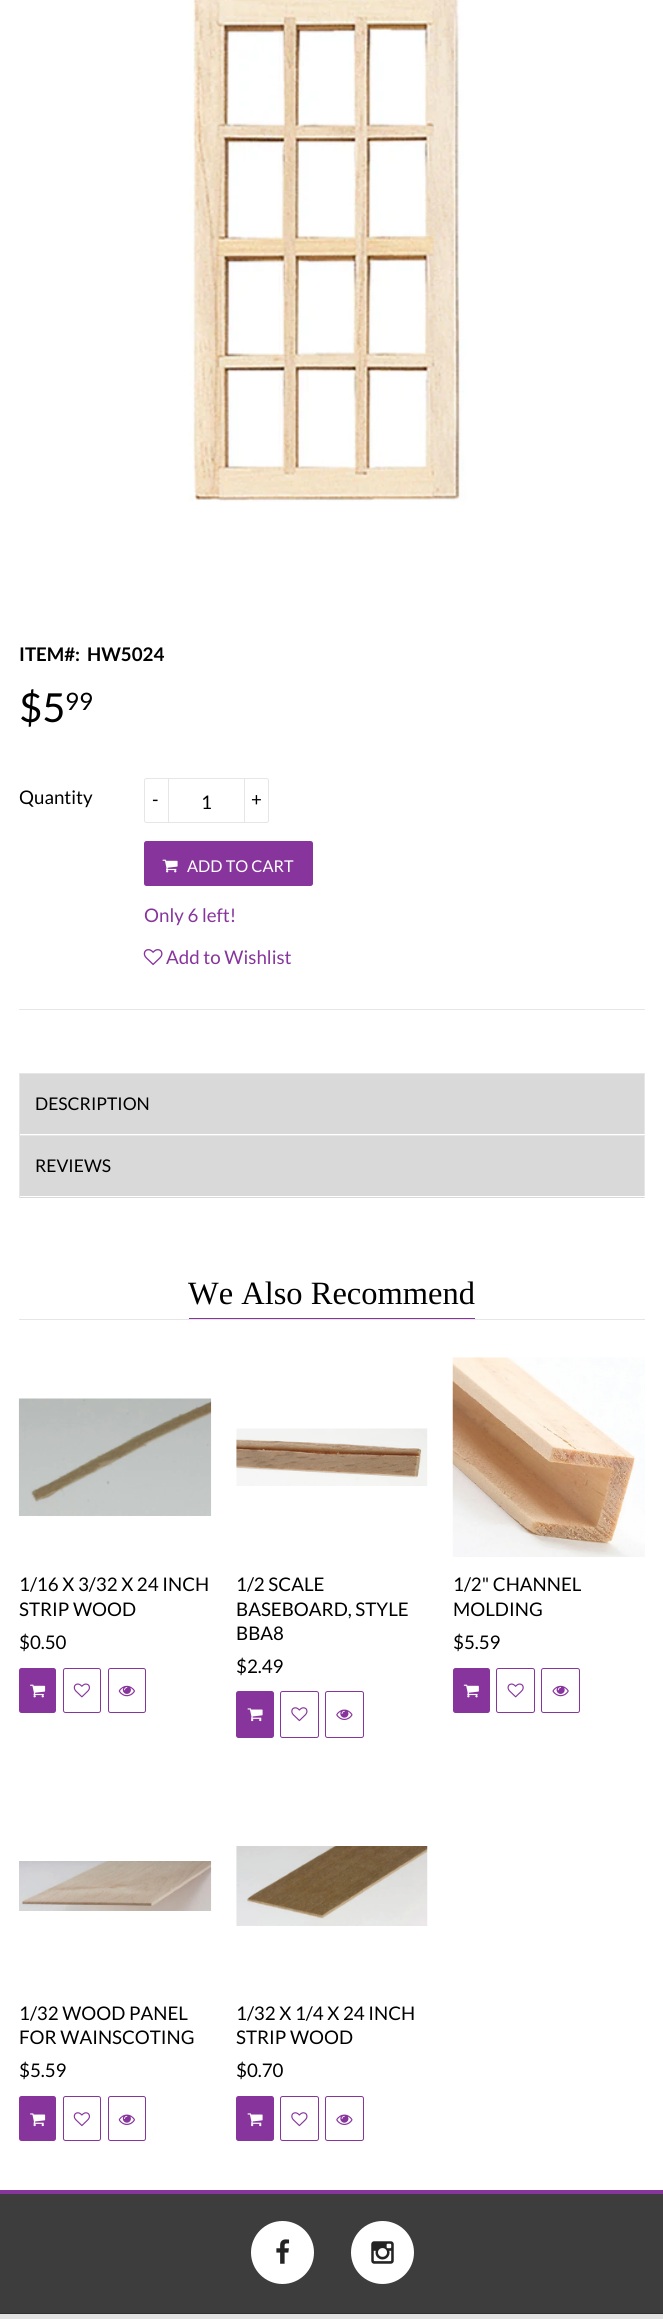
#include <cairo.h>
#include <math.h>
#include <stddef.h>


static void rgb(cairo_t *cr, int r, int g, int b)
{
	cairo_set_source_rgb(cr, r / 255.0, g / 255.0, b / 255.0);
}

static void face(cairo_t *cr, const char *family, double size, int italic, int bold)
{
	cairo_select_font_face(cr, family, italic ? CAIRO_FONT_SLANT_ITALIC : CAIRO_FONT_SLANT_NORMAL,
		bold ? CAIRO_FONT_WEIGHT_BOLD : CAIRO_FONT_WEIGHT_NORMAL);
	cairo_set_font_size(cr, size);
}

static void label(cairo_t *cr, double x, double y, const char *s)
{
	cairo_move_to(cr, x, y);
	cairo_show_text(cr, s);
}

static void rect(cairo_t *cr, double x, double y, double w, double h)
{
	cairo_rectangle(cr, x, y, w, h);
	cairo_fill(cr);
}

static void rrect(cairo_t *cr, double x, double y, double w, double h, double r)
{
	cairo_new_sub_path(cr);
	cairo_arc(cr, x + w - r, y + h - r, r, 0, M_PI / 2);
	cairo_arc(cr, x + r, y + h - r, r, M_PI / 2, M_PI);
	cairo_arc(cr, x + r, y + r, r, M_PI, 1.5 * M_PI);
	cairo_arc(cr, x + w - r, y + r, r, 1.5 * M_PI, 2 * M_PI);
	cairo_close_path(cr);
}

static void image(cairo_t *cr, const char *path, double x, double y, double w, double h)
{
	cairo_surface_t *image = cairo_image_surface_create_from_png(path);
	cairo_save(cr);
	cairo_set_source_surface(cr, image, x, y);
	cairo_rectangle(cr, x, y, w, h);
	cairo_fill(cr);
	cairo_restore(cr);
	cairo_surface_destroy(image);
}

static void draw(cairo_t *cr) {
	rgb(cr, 255, 255, 255);
	cairo_paint(cr);
	image(cr, "image0.png", 189, 0, 278, 502);
	face(cr, "Lato", 18.75, 0, 1);
	rgb(cr, 0, 0, 0);
	label(cr, 19, 661, "ITEM#:");
	label(cr, 87, 661, "HW5024");
	face(cr, "Lato", 40, 0, 0);
	label(cr, 19, 722, "$5");
	face(cr, "Lato", 24, 0, 0);
	label(cr, 65, 710, "99");
	face(cr, "Lato", 18.75, 0, 0);
	label(cr, 19, 804, "Quantity");
	rrect(cr, 144.5, 778.5, 124, 44, 2);
	rgb(cr, 230, 230, 230);
	cairo_set_line_width(cr, 1);
	cairo_stroke(cr);
	rect(cr, 168, 778, 1, 45);
	rgb(cr, 0, 0, 0);
	label(cr, 152, 806, "-");
	label(cr, 201, 809, "1");
	rgb(cr, 230, 230, 230);
	rect(cr, 244, 778, 1, 45);
	rgb(cr, 0, 0, 0);
	label(cr, 251, 806, "+");
	rgb(cr, 135, 53, 156);
	rrect(cr, 144, 841, 169, 45, 2.5);
	cairo_fill(cr);
	image(cr, "image1.png", 162, 859, 16, 14);
	face(cr, "Lato", 16.25, 0, 0);
	rgb(cr, 255, 255, 255);
	label(cr, 187, 872, "ADD TO CART");
	face(cr, "Lato", 18.75, 0, 0);
	rgb(cr, 135, 53, 156);
	label(cr, 144, 922, "Only 6 left!");
	image(cr, "image2.png", 143, 949, 20, 16);
	label(cr, 166, 964, "Add to Wishlist");
	rgb(cr, 230, 230, 230);
	rect(cr, 19, 1009, 626, 1);
	rgb(cr, 217, 217, 217);
	rect(cr, 20, 1074, 624, 60);
	rgb(cr, 230, 230, 230);
	rect(cr, 19, 1073, 626, 1);
	rect(cr, 644, 1073, 1, 62);
	rgb(cr, 255, 255, 255);
	rect(cr, 644, 1134, 1, 1);
	rgb(cr, 230, 230, 230);
	rect(cr, 19, 1073, 1, 62);
	face(cr, "Lato", 17.5, 0, 0);
	rgb(cr, 0, 0, 0);
	label(cr, 35, 1110, "DESCRIPTION");
	rgb(cr, 217, 217, 217);
	rect(cr, 20, 1136, 624, 62);
	rgb(cr, 230, 230, 230);
	rect(cr, 19, 1135, 626, 1);
	rect(cr, 644, 1135, 1, 63);
	rgb(cr, 255, 255, 255);
	rect(cr, 19, 1196, 626, 1);
	rgb(cr, 230, 230, 230);
	rect(cr, 19, 1135, 1, 63);
	rgb(cr, 0, 0, 0);
	label(cr, 35, 1172, "REVIEWS");
	rgb(cr, 230, 230, 230);
	rect(cr, 19, 1319, 626, 1);
	rgb(cr, 135, 53, 156);
	rect(cr, 189, 1318, 286, 1);
	face(cr, "Liberation Serif", 32.5, 0, 0);
	rgb(cr, 0, 0, 0);
	label(cr, 188, 1304, "We Also Recommend");
	image(cr, "image3.png", 18, 1398, 194, 118);
	face(cr, "Lato", 18.75, 0, 0);
	label(cr, 19, 1591, "1/16 X 3/32 X 24 INCH");
	label(cr, 19, 1616, "STRIP WOOD");
	label(cr, 19, 1649, "$0.50");
	rgb(cr, 135, 53, 156);
	rrect(cr, 19, 1668, 37, 45, 2.5);
	cairo_fill(cr);
	image(cr, "image4.png", 30, 1684, 16, 14);
	rrect(cr, 63.5, 1668.5, 37, 44, 2);
	cairo_stroke(cr);
	image(cr, "image5.png", 73, 1683, 17, 15);
	rrect(cr, 108.5, 1668.5, 37, 44, 2);
	cairo_stroke(cr);
	image(cr, "image6.png", 118, 1685, 17, 12);
	image(cr, "image7.png", 236, 1428, 192, 58);
	rgb(cr, 0, 0, 0);
	label(cr, 236, 1591, "1/2 SCALE");
	label(cr, 236, 1616, "BASEBOARD, STYLE");
	label(cr, 236, 1640, "BBA8");
	label(cr, 236, 1673, "$2.49");
	rgb(cr, 135, 53, 156);
	rrect(cr, 236, 1691, 38, 47, 2.5);
	cairo_fill(cr);
	image(cr, "image8.png", 247, 1708, 16, 14);
	rrect(cr, 280.5, 1691.5, 38, 46, 2);
	cairo_stroke(cr);
	image(cr, "image9.png", 291, 1707, 17, 15);
	rrect(cr, 325.5, 1691.5, 38, 46, 2);
	cairo_stroke(cr);
	image(cr, "image10.png", 336, 1709, 17, 11);
	image(cr, "image11.png", 452, 1357, 193, 200);
	rgb(cr, 0, 0, 0);
	label(cr, 453, 1591, "1/2\" CHANNEL");
	label(cr, 453, 1616, "MOLDING");
	label(cr, 453, 1649, "$5.59");
	rgb(cr, 135, 53, 156);
	rrect(cr, 453, 1668, 37, 45, 2.5);
	cairo_fill(cr);
	image(cr, "image12.png", 463, 1684, 16, 14);
	rrect(cr, 496.5, 1668.5, 38, 44, 2);
	cairo_stroke(cr);
	image(cr, "image13.png", 507, 1683, 17, 15);
	rrect(cr, 541.5, 1668.5, 38, 44, 2);
	cairo_stroke(cr);
	image(cr, "image14.png", 552, 1685, 17, 12);
	image(cr, "image15.png", 19, 1861, 193, 50);
	rgb(cr, 0, 0, 0);
	label(cr, 19, 2020, "1/32 WOOD PANEL");
	label(cr, 19, 2044, "FOR WAINSCOTING");
	label(cr, 19, 2077, "$5.59");
	rgb(cr, 135, 53, 156);
	rrect(cr, 19, 2096, 37, 45, 2.5);
	cairo_fill(cr);
	image(cr, "image16.png", 30, 2113, 16, 14);
	rrect(cr, 63.5, 2096.5, 37, 44, 2);
	cairo_stroke(cr);
	image(cr, "image17.png", 73, 2112, 17, 15);
	rrect(cr, 108.5, 2096.5, 37, 44, 2);
	cairo_stroke(cr);
	image(cr, "image18.png", 118, 2114, 17, 11);
	image(cr, "image19.png", 236, 1846, 192, 80);
	rgb(cr, 0, 0, 0);
	label(cr, 236, 2020, "1/32 X 1/4 X 24 INCH");
	label(cr, 236, 2044, "STRIP WOOD");
	label(cr, 236, 2077, "$0.70");
	rgb(cr, 135, 53, 156);
	rrect(cr, 236, 2096, 38, 45, 2.5);
	cairo_fill(cr);
	image(cr, "image8.png", 247, 2113, 16, 14);
	rrect(cr, 280.5, 2096.5, 38, 44, 2);
	cairo_stroke(cr);
	image(cr, "image9.png", 291, 2112, 17, 15);
	rrect(cr, 325.5, 2096.5, 38, 44, 2);
	cairo_stroke(cr);
	image(cr, "image10.png", 336, 2114, 17, 11);
	rgb(cr, 61, 61, 61);
	rect(cr, 0, 2194, 663, 119);
	rgb(cr, 135, 53, 156);
	rect(cr, 0, 2190, 663, 4);
	rgb(cr, 48, 48, 48);
	rect(cr, 0, 2313, 663, 1);
	rgb(cr, 255, 255, 255);
	cairo_arc(cr, 282.5, 2252.5, 31.5, 0, 2 * M_PI);
	cairo_fill(cr);
	image(cr, "image20.png", 276, 2239, 14, 25);
	cairo_arc(cr, 382.5, 2252.5, 31.5, 0, 2 * M_PI);
	cairo_fill(cr);
	image(cr, "image21.png", 371, 2241, 23, 23);
	rgb(cr, 227, 227, 227);
	rect(cr, 0, 2314, 663, 5);
}

int main(void) {
	cairo_surface_t *surface = cairo_image_surface_create(CAIRO_FORMAT_RGB24, 663, 2319);
	cairo_t *cr = cairo_create(surface);
	cairo_font_options_t *options = cairo_font_options_create();
	cairo_font_options_set_hint_metrics(options, CAIRO_HINT_METRICS_OFF);
	cairo_font_options_set_hint_style(options, CAIRO_HINT_STYLE_NONE);
	cairo_set_font_options(cr, options);
	cairo_set_miter_limit(cr, 4);
	draw(cr);
	cairo_surface_write_to_png(surface, "render.png");
	cairo_font_options_destroy(options);
	cairo_destroy(cr);
	cairo_surface_destroy(surface);
	return 0;
}
